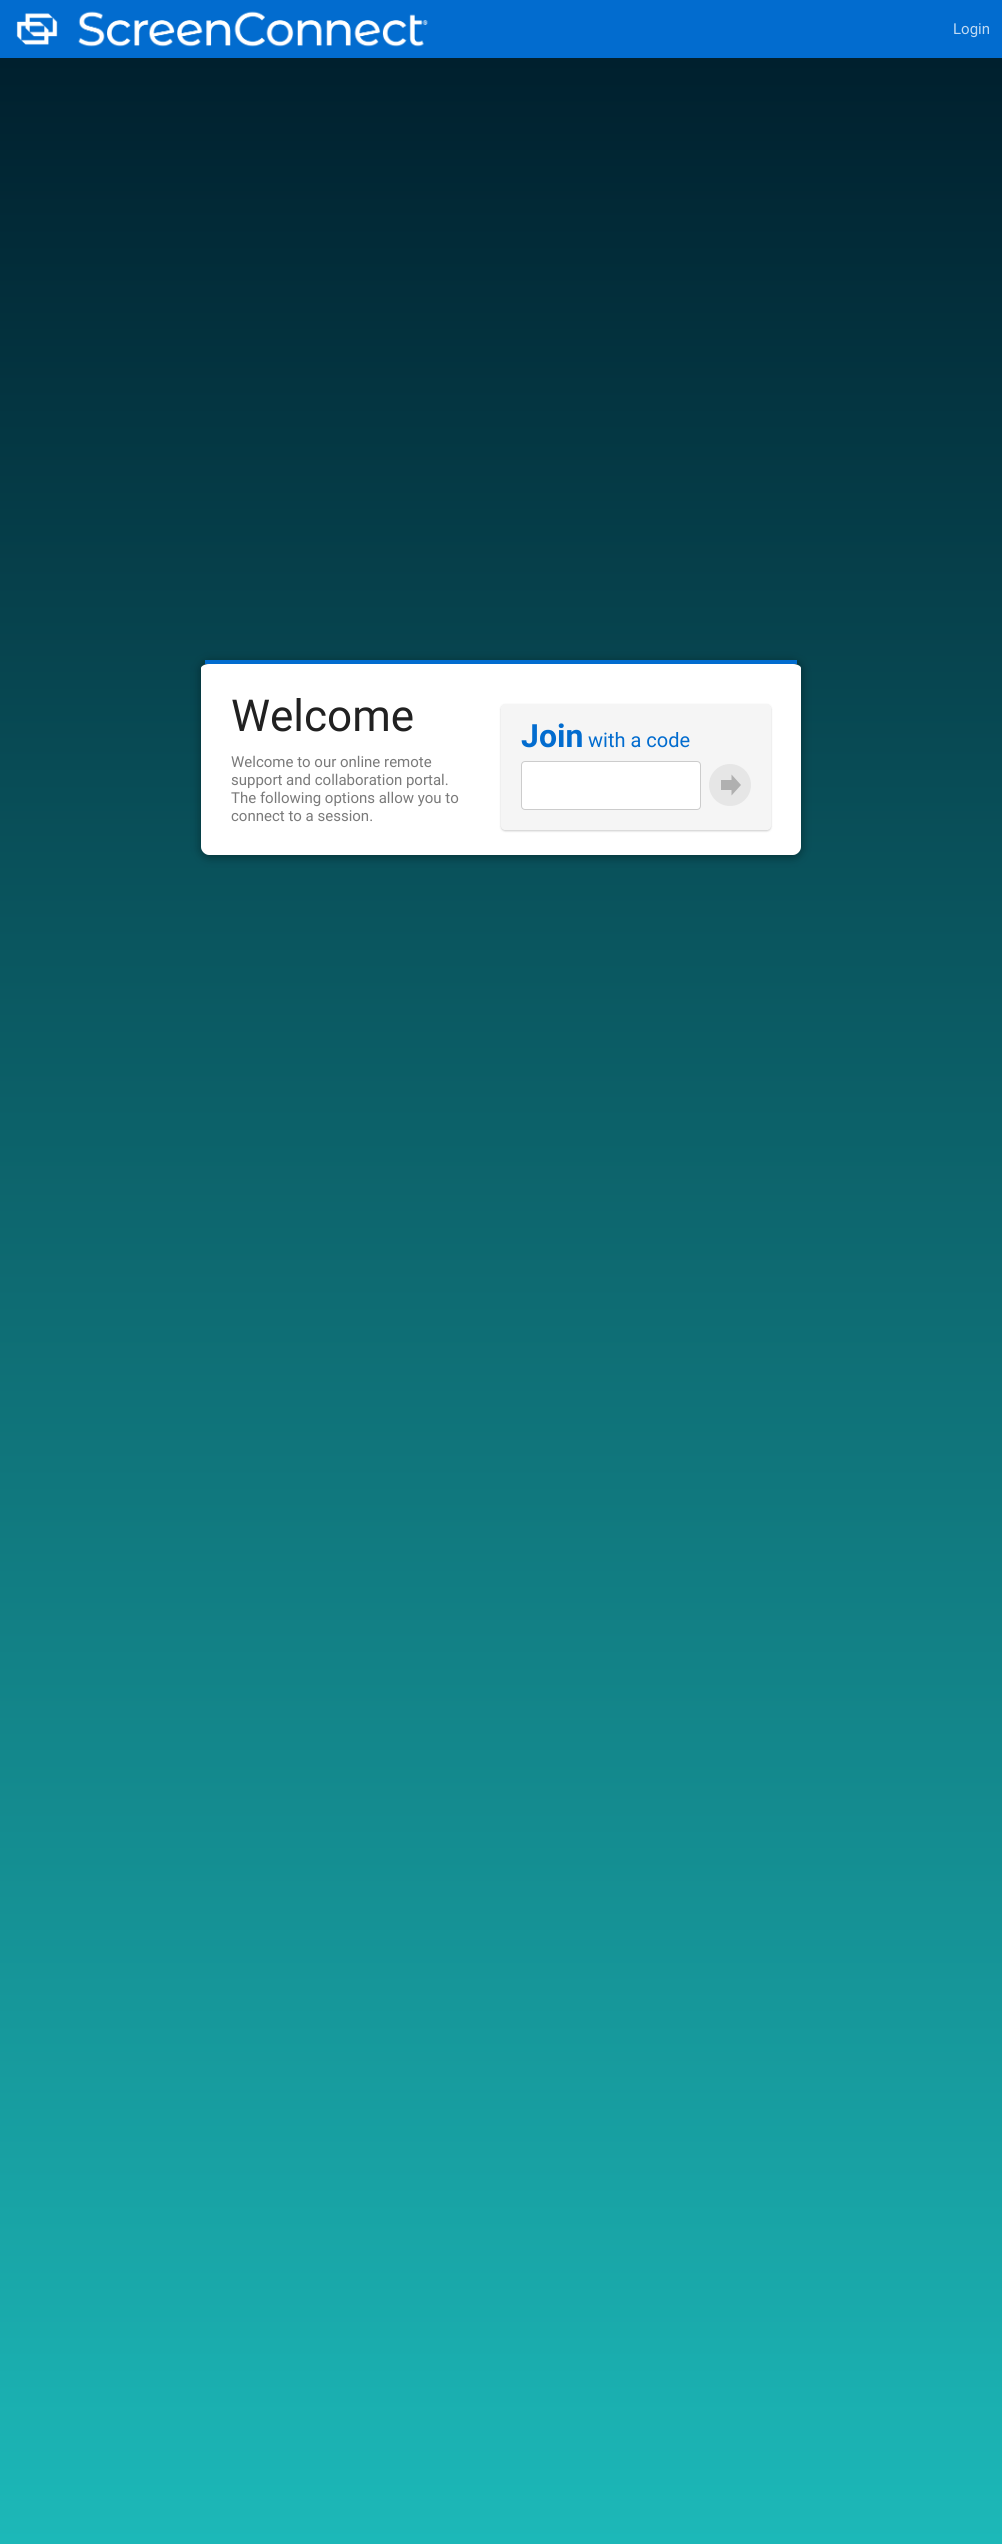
#include <cairo.h>
#include <math.h>
#include <stddef.h>


static void rgb(cairo_t *cr, int r, int g, int b)
{
	cairo_set_source_rgb(cr, r / 255.0, g / 255.0, b / 255.0);
}

static void face(cairo_t *cr, const char *family, double size, int italic, int bold)
{
	cairo_select_font_face(cr, family, italic ? CAIRO_FONT_SLANT_ITALIC : CAIRO_FONT_SLANT_NORMAL,
		bold ? CAIRO_FONT_WEIGHT_BOLD : CAIRO_FONT_WEIGHT_NORMAL);
	cairo_set_font_size(cr, size);
}

static void label(cairo_t *cr, double x, double y, const char *s)
{
	cairo_move_to(cr, x, y);
	cairo_show_text(cr, s);
}

static void rect(cairo_t *cr, double x, double y, double w, double h)
{
	cairo_rectangle(cr, x, y, w, h);
	cairo_fill(cr);
}

static void rrect(cairo_t *cr, double x, double y, double w, double h, double r)
{
	cairo_new_sub_path(cr);
	cairo_arc(cr, x + w - r, y + h - r, r, 0, M_PI / 2);
	cairo_arc(cr, x + r, y + h - r, r, M_PI / 2, M_PI);
	cairo_arc(cr, x + r, y + r, r, M_PI, 1.5 * M_PI);
	cairo_arc(cr, x + w - r, y + r, r, 1.5 * M_PI, 2 * M_PI);
	cairo_close_path(cr);
}

static void soft_shadow(cairo_t *cr, double x, double y, double w, double h, double r, double blur, double alpha)
{
	cairo_push_group_with_content(cr, CAIRO_CONTENT_ALPHA);
	cairo_set_operator(cr, CAIRO_OPERATOR_SOURCE);
	for (int i = 15; i >= -15 && fmin(w, h) + blur * i / 3 > 0; i -= 2) {
		double e = blur * i / 6;
		cairo_set_source_rgba(cr, 0, 0, 0, alpha * erfc((i - 1) / 8.5) / 2);
		rrect(cr, x - e, y - e, w + 2 * e, h + 2 * e, fmax(0, fmin(r + e + blur * .6, fmin(w, h) / 2 + e)));
		cairo_fill(cr);
	}
	cairo_pattern_t *soft = cairo_pop_group(cr);
	cairo_mask(cr, soft);
	cairo_pattern_destroy(soft);
}

static void image(cairo_t *cr, const char *path, double x, double y, double w, double h)
{
	cairo_surface_t *image = cairo_image_surface_create_from_png(path);
	cairo_save(cr);
	cairo_set_source_surface(cr, image, x, y);
	cairo_rectangle(cr, x, y, w, h);
	cairo_fill(cr);
	cairo_restore(cr);
	cairo_surface_destroy(image);
}

static void draw(cairo_t *cr) {
	cairo_pattern_t *gradient;
	rgb(cr, 2, 108, 207);
	cairo_paint(cr);
	image(cr, "image0.png", 16, 13, 42, 32);
	image(cr, "image1.png", 78, 11, 350, 36);
	face(cr, "Roboto", 15, 0, 0);
	rgb(cr, 192, 218, 243);
	label(cr, 953, 34, "Login");
	gradient = cairo_pattern_create_linear(501, 58, 501, 2544);
	cairo_pattern_add_color_stop_rgba(gradient, 0, 0, 0.125, 0.18, 1);
	cairo_pattern_add_color_stop_rgba(gradient, 1, 0.11, 0.722, 0.722, 1);
	cairo_set_source(cr, gradient);
	cairo_pattern_destroy(gradient);
	rect(cr, 0, 58, 1002, 2486);
	rgb(cr, 0, 0, 0);
	soft_shadow(cr, 201, 662, 600, 195, 8, 5, 0.4);
	rgb(cr, 255, 255, 255);
	cairo_new_path(cr);
	cairo_move_to(cr, 209, 664);
	cairo_line_to(cr, 793, 664);
	cairo_curve_to(cr, 797, 664, 801, 666, 801, 668);
	cairo_line_to(cr, 801, 847);
	cairo_curve_to(cr, 801, 851, 797, 855, 793, 855);
	cairo_line_to(cr, 209, 855);
	cairo_curve_to(cr, 205, 855, 201, 851, 201, 847);
	cairo_line_to(cr, 201, 668);
	cairo_curve_to(cr, 201, 666, 205, 664, 209, 664);
	cairo_close_path(cr);
	cairo_fill(cr);
	rgb(cr, 2, 108, 207);
	rect(cr, 205, 660, 592, 4);
	face(cr, "Roboto", 44, 0, 0);
	rgb(cr, 33, 33, 33);
	label(cr, 231, 731, "Welcome");
	face(cr, "Roboto", 15, 0, 0);
	rgb(cr, 122, 122, 122);
	label(cr, 231, 767, "Welcome to our online remote");
	label(cr, 231, 785, "support and collaboration portal.");
	label(cr, 231, 803, "The following options allow you to");
	label(cr, 231, 821, "connect to a session.");
	rgb(cr, 0, 0, 0);
	soft_shadow(cr, 501, 705, 270, 126, 4, 1, 0.2);
	rgb(cr, 245, 245, 245);
	rrect(cr, 501, 704, 270, 126, 4);
	cairo_fill(cr);
	face(cr, "Roboto", 32, 0, 1);
	rgb(cr, 2, 108, 207);
	label(cr, 521, 747, "Join");
	face(cr, "Roboto", 20, 0, 0);
	label(cr, 588, 747, "with a code");
	rgb(cr, 255, 255, 255);
	rrect(cr, 521.5, 761.5, 179, 48, 3.5);
	cairo_fill_preserve(cr);
	rgb(cr, 204, 204, 204);
	cairo_set_line_width(cr, 1);
	cairo_stroke(cr);
	rgb(cr, 230, 230, 230);
	cairo_arc(cr, 730, 785, 21, 0, 2 * M_PI);
	cairo_fill(cr);
	rgb(cr, 176, 176, 176);
	cairo_new_path(cr);
	cairo_move_to(cr, 741, 785);
	cairo_line_to(cr, 731.5, 774.5);
	cairo_line_to(cr, 731.5, 780);
	cairo_line_to(cr, 721, 780);
	cairo_line_to(cr, 721, 790);
	cairo_line_to(cr, 731.5, 790);
	cairo_line_to(cr, 731.5, 795.5);
	cairo_close_path(cr);
	cairo_fill(cr);
}

int main(void) {
	cairo_surface_t *surface = cairo_image_surface_create(CAIRO_FORMAT_RGB24, 1002, 2544);
	cairo_t *cr = cairo_create(surface);
	cairo_font_options_t *options = cairo_font_options_create();
	cairo_font_options_set_hint_metrics(options, CAIRO_HINT_METRICS_OFF);
	cairo_font_options_set_hint_style(options, CAIRO_HINT_STYLE_NONE);
	cairo_set_font_options(cr, options);
	cairo_set_miter_limit(cr, 4);
	draw(cr);
	cairo_surface_write_to_png(surface, "render.png");
	cairo_font_options_destroy(options);
	cairo_destroy(cr);
	cairo_surface_destroy(surface);
	return 0;
}
